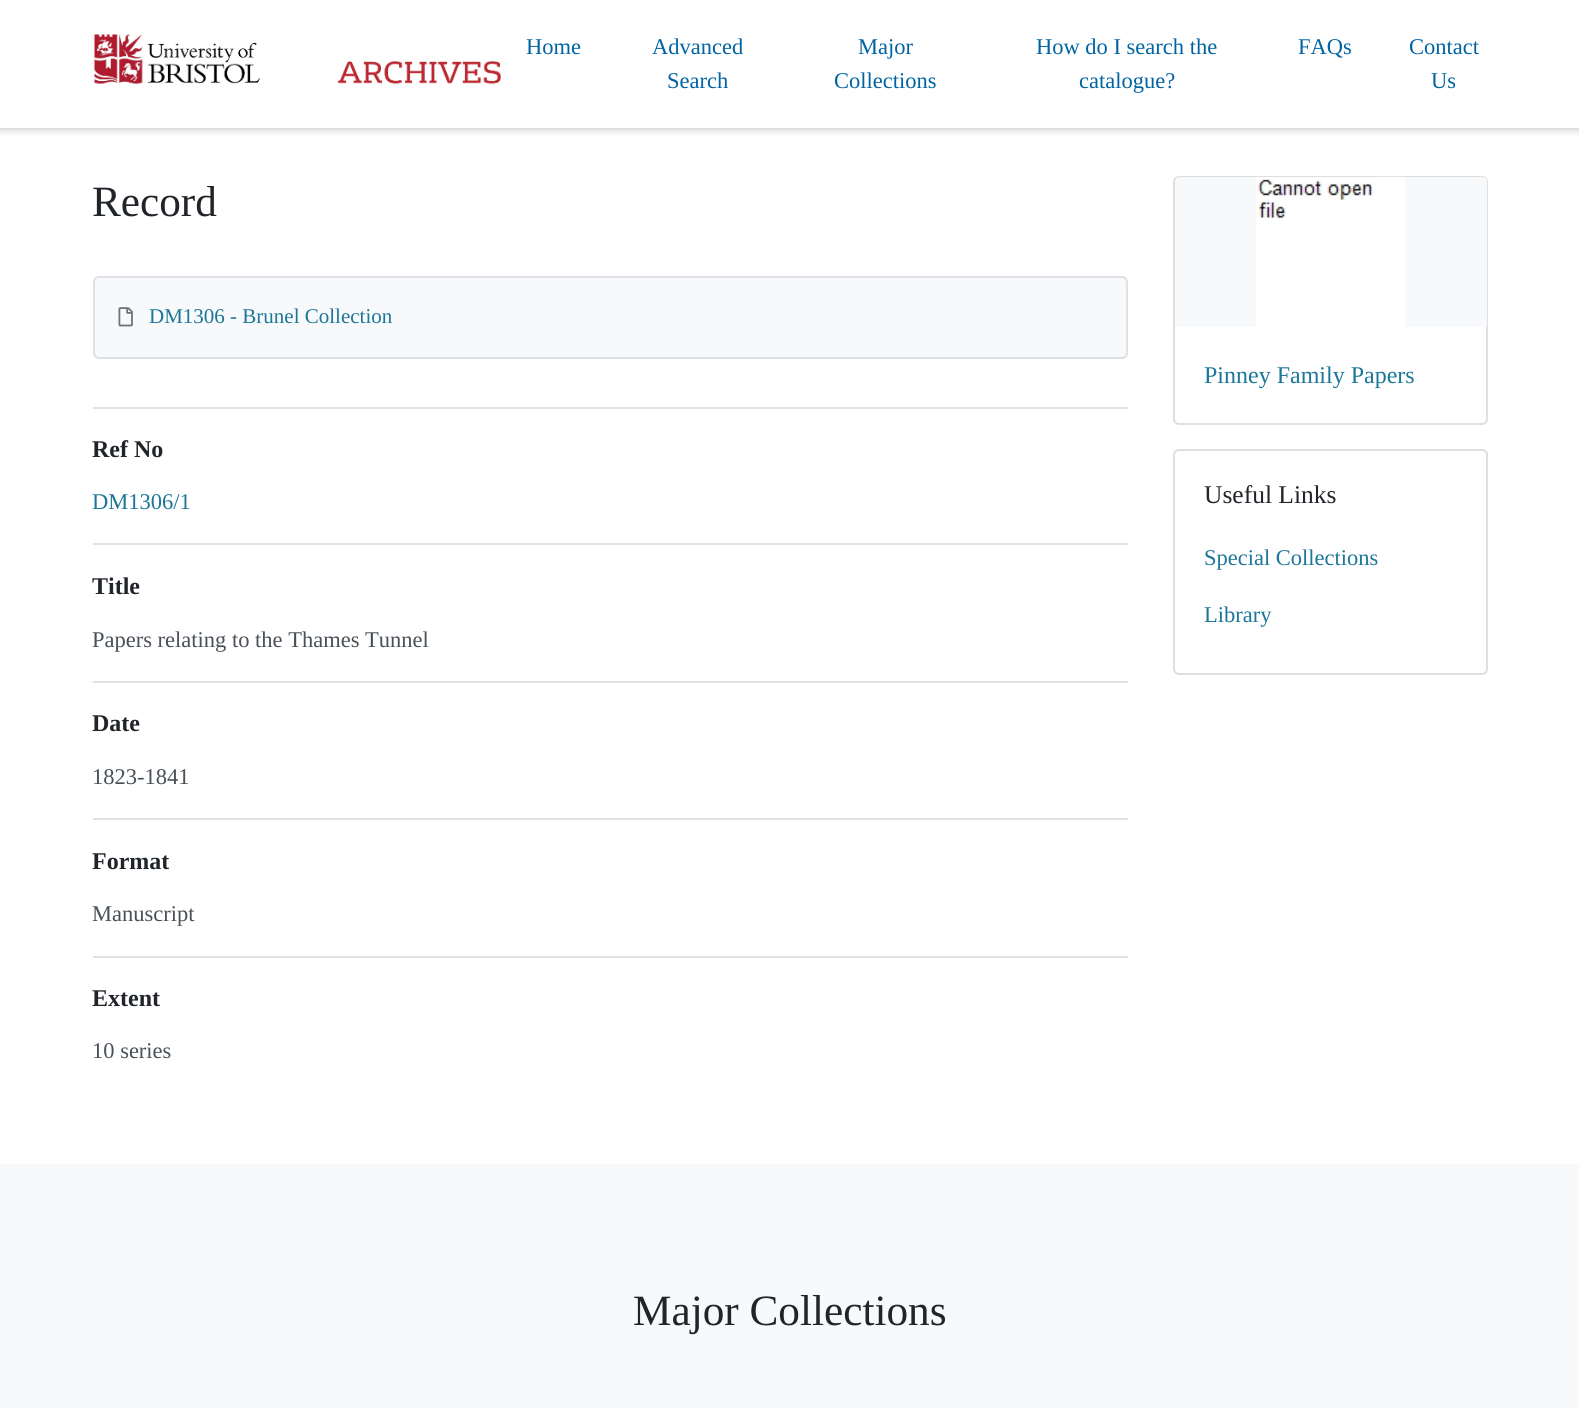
#include <cairo.h>
#include <math.h>
#include <stddef.h>


static void rgb(cairo_t *cr, int r, int g, int b)
{
	cairo_set_source_rgb(cr, r / 255.0, g / 255.0, b / 255.0);
}

static void face(cairo_t *cr, const char *family, double size, int italic, int bold)
{
	cairo_select_font_face(cr, family, italic ? CAIRO_FONT_SLANT_ITALIC : CAIRO_FONT_SLANT_NORMAL,
		bold ? CAIRO_FONT_WEIGHT_BOLD : CAIRO_FONT_WEIGHT_NORMAL);
	cairo_set_font_size(cr, size);
}

static void label(cairo_t *cr, double x, double y, const char *s)
{
	cairo_move_to(cr, x, y);
	cairo_show_text(cr, s);
}

static void rect(cairo_t *cr, double x, double y, double w, double h)
{
	cairo_rectangle(cr, x, y, w, h);
	cairo_fill(cr);
}

static void rrect(cairo_t *cr, double x, double y, double w, double h, double r)
{
	cairo_new_sub_path(cr);
	cairo_arc(cr, x + w - r, y + h - r, r, 0, M_PI / 2);
	cairo_arc(cr, x + r, y + h - r, r, M_PI / 2, M_PI);
	cairo_arc(cr, x + r, y + r, r, M_PI, 1.5 * M_PI);
	cairo_arc(cr, x + w - r, y + r, r, 1.5 * M_PI, 2 * M_PI);
	cairo_close_path(cr);
}

static void soft_shadow(cairo_t *cr, double x, double y, double w, double h, double r, double blur, double alpha)
{
	cairo_push_group_with_content(cr, CAIRO_CONTENT_ALPHA);
	cairo_set_operator(cr, CAIRO_OPERATOR_SOURCE);
	for (int i = 15; i >= -15 && fmin(w, h) + blur * i / 3 > 0; i -= 2) {
		double e = blur * i / 6;
		cairo_set_source_rgba(cr, 0, 0, 0, alpha * erfc((i - 1) / 8.5) / 2);
		rrect(cr, x - e, y - e, w + 2 * e, h + 2 * e, fmax(0, fmin(r + e + blur * .6, fmin(w, h) / 2 + e)));
		cairo_fill(cr);
	}
	cairo_pattern_t *soft = cairo_pop_group(cr);
	cairo_mask(cr, soft);
	cairo_pattern_destroy(soft);
}

static void image(cairo_t *cr, const char *path, double x, double y, double w, double h)
{
	cairo_surface_t *image = cairo_image_surface_create_from_png(path);
	cairo_save(cr);
	cairo_set_source_surface(cr, image, x, y);
	cairo_rectangle(cr, x, y, w, h);
	cairo_fill(cr);
	cairo_restore(cr);
	cairo_surface_destroy(image);
}

static void draw(cairo_t *cr) {
	rgb(cr, 255, 255, 255);
	cairo_paint(cr);
	rgb(cr, 0, 0, 0);
	soft_shadow(cr, 0, 0, 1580, 128, 0, 4.5, 0.3);
	rgb(cr, 255, 255, 255);
	rect(cr, 0, 0, 1579, 128);
	image(cr, "image0.png", 94, 34, 407, 51);
	face(cr, "Liberation Serif", 22.5, 0, 0);
	rgb(cr, 0, 99, 163);
	label(cr, 526, 54, "Home");
	label(cr, 652, 54, "Advanced");
	label(cr, 667, 88, "Search");
	label(cr, 858, 54, "Major");
	label(cr, 834, 88, "Collections");
	label(cr, 1036, 54, "How do I search the");
	label(cr, 1079, 88, "catalogue?");
	label(cr, 1298, 54, "FAQs");
	label(cr, 1409, 54, "Contact");
	label(cr, 1431, 88, "Us");
	face(cr, "Liberation Serif", 43.25, 0, 0);
	rgb(cr, 33, 37, 41);
	label(cr, 92, 216, "Record");
	rgb(cr, 248, 249, 250);
	rrect(cr, 94, 277, 1033, 81, 5);
	cairo_fill_preserve(cr);
	rgb(cr, 222, 226, 230);
	cairo_stroke(cr);
	image(cr, "image1.png", 118, 307, 15, 20);
	face(cr, "Liberation Serif", 21, 0, 0);
	rgb(cr, 28, 118, 152);
	label(cr, 149, 323, "DM1306 - Brunel Collection");
	rgb(cr, 222, 226, 230);
	rect(cr, 93, 407, 1035, 2);
	face(cr, "Liberation Serif", 24, 0, 1);
	rgb(cr, 33, 37, 41);
	label(cr, 92, 457, "Ref No");
	face(cr, "Liberation Serif", 22.5, 0, 0);
	rgb(cr, 28, 118, 152);
	label(cr, 92, 509, "DM1306/1");
	rgb(cr, 222, 226, 230);
	rect(cr, 93, 543, 1035, 2);
	face(cr, "Liberation Serif", 24, 0, 1);
	rgb(cr, 33, 37, 41);
	label(cr, 92, 594, "Title");
	face(cr, "Liberation Serif", 22.5, 0, 0);
	rgb(cr, 73, 80, 87);
	label(cr, 92, 647, "Papers relating to the Thames Tunnel");
	rgb(cr, 222, 226, 230);
	rect(cr, 93, 681, 1035, 2);
	face(cr, "Liberation Serif", 24, 0, 1);
	rgb(cr, 33, 37, 41);
	label(cr, 92, 731, "Date");
	face(cr, "Liberation Serif", 22.5, 0, 0);
	rgb(cr, 73, 80, 87);
	label(cr, 92, 784, "1823-1841");
	rgb(cr, 222, 226, 230);
	rect(cr, 93, 818, 1035, 2);
	face(cr, "Liberation Serif", 24, 0, 1);
	rgb(cr, 33, 37, 41);
	label(cr, 92, 869, "Format");
	face(cr, "Liberation Serif", 22.5, 0, 0);
	rgb(cr, 73, 80, 87);
	label(cr, 92, 921, "Manuscript");
	rgb(cr, 222, 226, 230);
	rect(cr, 93, 956, 1035, 2);
	face(cr, "Liberation Serif", 24, 0, 1);
	rgb(cr, 33, 37, 41);
	label(cr, 92, 1006, "Extent");
	face(cr, "Liberation Serif", 22.5, 0, 0);
	rgb(cr, 73, 80, 87);
	label(cr, 92, 1058, "10 series");
	rrect(cr, 1174, 177, 313, 247, 5);
	rgb(cr, 223, 223, 223);
	cairo_stroke(cr);
	rgb(cr, 248, 249, 250);
	cairo_new_path(cr);
	cairo_move_to(cr, 1180, 177);
	cairo_line_to(cr, 1482, 177);
	cairo_curve_to(cr, 1485, 177, 1487, 179, 1487, 182);
	cairo_line_to(cr, 1487, 327);
	cairo_line_to(cr, 1175, 327);
	cairo_line_to(cr, 1175, 182);
	cairo_curve_to(cr, 1175, 179, 1177, 177, 1180, 177);
	cairo_close_path(cr);
	cairo_fill(cr);
	image(cr, "image2.png", 1256, 177, 149, 150);
	face(cr, "Liberation Serif", 24, 0, 0);
	rgb(cr, 28, 118, 152);
	label(cr, 1204, 383, "Pinney Family Papers");
	rrect(cr, 1174, 450, 313, 224, 5);
	rgb(cr, 223, 223, 223);
	cairo_stroke(cr);
	face(cr, "Liberation Serif", 25.5, 0, 0);
	rgb(cr, 33, 37, 41);
	label(cr, 1204, 503, "Useful Links");
	face(cr, "Liberation Serif", 22.5, 0, 0);
	rgb(cr, 28, 118, 152);
	label(cr, 1204, 565, "Special Collections");
	label(cr, 1204, 622, "Library");
	rgb(cr, 248, 249, 250);
	rect(cr, 0, 1164, 1579, 244);
	face(cr, "Liberation Serif", 43.25, 0, 0);
	rgb(cr, 33, 37, 41);
	label(cr, 633, 1325, "Major Collections");
}

int main(void) {
	cairo_surface_t *surface = cairo_image_surface_create(CAIRO_FORMAT_RGB24, 1579, 1408);
	cairo_t *cr = cairo_create(surface);
	cairo_font_options_t *options = cairo_font_options_create();
	cairo_font_options_set_hint_metrics(options, CAIRO_HINT_METRICS_OFF);
	cairo_font_options_set_hint_style(options, CAIRO_HINT_STYLE_NONE);
	cairo_set_font_options(cr, options);
	cairo_set_miter_limit(cr, 4);
	draw(cr);
	cairo_surface_write_to_png(surface, "render.png");
	cairo_font_options_destroy(options);
	cairo_destroy(cr);
	cairo_surface_destroy(surface);
	return 0;
}
